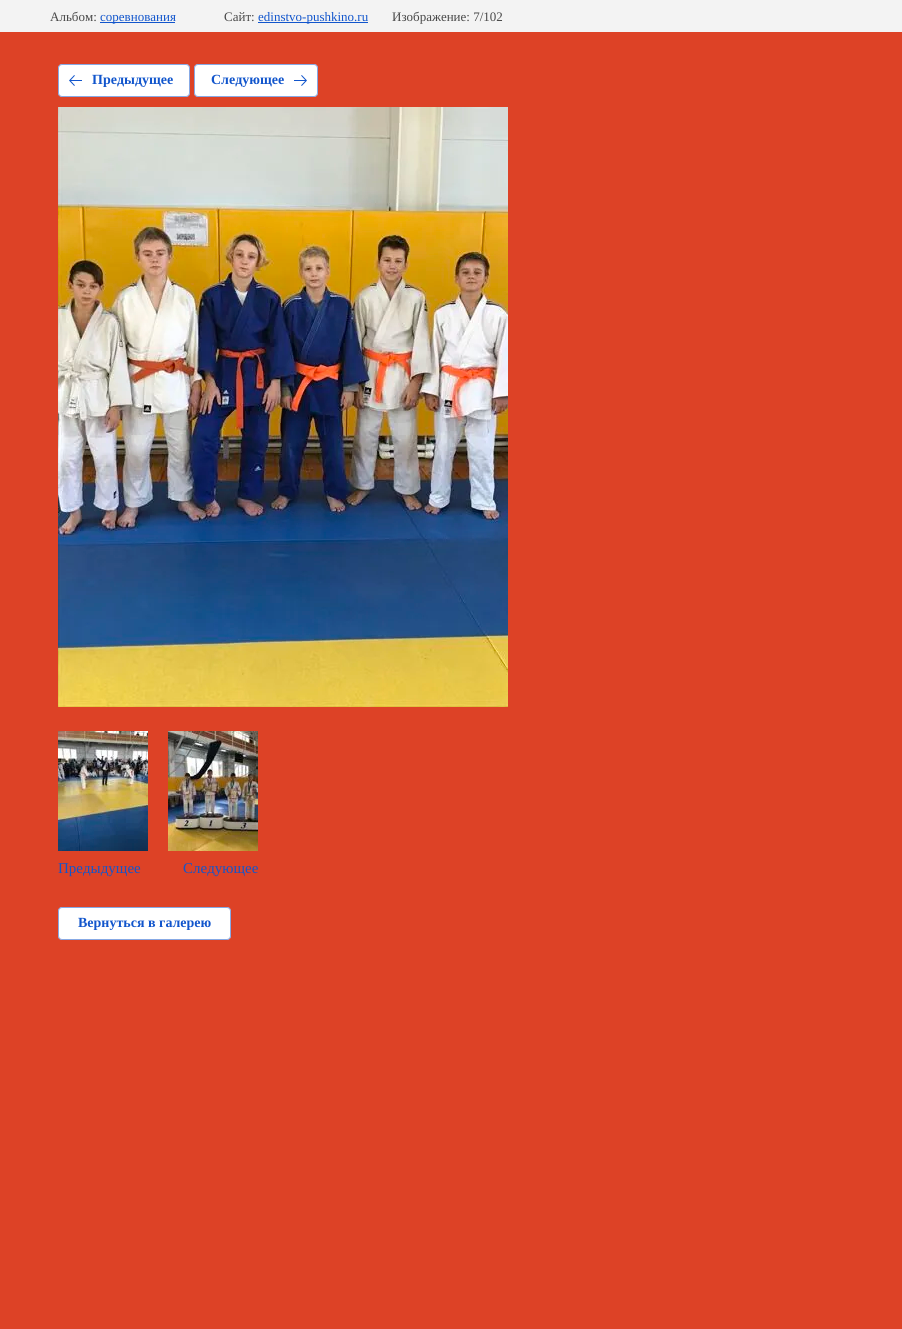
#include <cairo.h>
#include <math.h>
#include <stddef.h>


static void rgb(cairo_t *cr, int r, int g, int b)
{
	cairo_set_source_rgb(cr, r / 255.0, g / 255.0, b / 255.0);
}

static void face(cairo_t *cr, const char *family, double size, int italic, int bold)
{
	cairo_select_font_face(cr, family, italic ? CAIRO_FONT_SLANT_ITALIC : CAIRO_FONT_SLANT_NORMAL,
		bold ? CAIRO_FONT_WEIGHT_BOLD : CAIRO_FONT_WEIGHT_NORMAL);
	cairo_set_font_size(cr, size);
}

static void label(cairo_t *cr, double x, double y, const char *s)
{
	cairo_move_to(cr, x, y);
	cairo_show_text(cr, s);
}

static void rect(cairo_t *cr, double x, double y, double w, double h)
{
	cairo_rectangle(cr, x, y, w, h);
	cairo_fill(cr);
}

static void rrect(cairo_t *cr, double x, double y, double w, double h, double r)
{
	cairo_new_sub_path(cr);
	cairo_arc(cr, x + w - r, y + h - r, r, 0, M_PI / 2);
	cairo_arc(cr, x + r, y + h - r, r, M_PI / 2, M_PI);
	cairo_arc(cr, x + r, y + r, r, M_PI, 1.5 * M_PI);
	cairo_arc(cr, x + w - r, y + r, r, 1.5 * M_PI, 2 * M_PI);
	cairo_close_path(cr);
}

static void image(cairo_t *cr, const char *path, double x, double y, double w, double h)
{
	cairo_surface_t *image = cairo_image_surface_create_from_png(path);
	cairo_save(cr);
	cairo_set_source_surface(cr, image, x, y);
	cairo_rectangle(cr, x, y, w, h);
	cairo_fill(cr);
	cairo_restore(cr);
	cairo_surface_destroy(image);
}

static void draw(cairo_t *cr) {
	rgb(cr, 221, 66, 38);
	cairo_paint(cr);
	rgb(cr, 243, 243, 243);
	rect(cr, 0, 0, 902, 32);
	face(cr, "Liberation Serif", 13, 0, 0);
	rgb(cr, 72, 72, 72);
	label(cr, 50, 21, "Альбом:");
	rgb(cr, 17, 85, 204);
	rect(cr, 100, 22, 75, 1);
	label(cr, 100, 21, "соревнования");
	rgb(cr, 72, 72, 72);
	label(cr, 224, 21, "Сайт:");
	rgb(cr, 17, 85, 204);
	rect(cr, 258, 22, 110, 1);
	label(cr, 258, 21, "edinstvo-pushkino.ru");
	rgb(cr, 72, 72, 72);
	label(cr, 392, 21, "Изображение: 7/102");
	rgb(cr, 255, 255, 255);
	rrect(cr, 58, 64, 132, 33, 4);
	cairo_fill(cr);
	rrect(cr, 58.5, 64.5, 131, 32, 3.5);
	cairo_set_source_rgba(cr, 0.067, 0.333, 0.8, 0.5);
	cairo_set_line_width(cr, 1);
	cairo_stroke(cr);
	image(cr, "image0.png", 69, 75, 13, 11);
	face(cr, "Liberation Serif", 14, 0, 1);
	rgb(cr, 17, 85, 204);
	label(cr, 92, 84, "Предыдущее");
	rgb(cr, 255, 255, 255);
	rrect(cr, 194, 64, 124, 33, 4);
	cairo_fill(cr);
	rrect(cr, 194.5, 64.5, 123, 32, 3.5);
	cairo_set_source_rgba(cr, 0.067, 0.333, 0.8, 0.5);
	cairo_stroke(cr);
	rgb(cr, 17, 85, 204);
	label(cr, 211, 84, "Следующее");
	image(cr, "image1.png", 294, 75, 13, 11);
	image(cr, "image2.png", 58, 107, 450, 600);
	image(cr, "image3.png", 58, 731, 90, 120);
	face(cr, "Liberation Serif", 15, 0, 0);
	label(cr, 58, 873, "Предыдущее");
	image(cr, "image4.png", 168, 731, 90, 120);
	label(cr, 183, 873, "Следующее");
	rgb(cr, 255, 255, 255);
	rrect(cr, 58, 907, 173, 33, 4);
	cairo_fill(cr);
	rrect(cr, 58.5, 907.5, 172, 32, 3.5);
	cairo_set_source_rgba(cr, 0.067, 0.333, 0.8, 0.5);
	cairo_stroke(cr);
	face(cr, "Liberation Serif", 14, 0, 1);
	rgb(cr, 17, 85, 204);
	label(cr, 78, 927, "Вернуться в галерею");
}

int main(void) {
	cairo_surface_t *surface = cairo_image_surface_create(CAIRO_FORMAT_RGB24, 902, 1329);
	cairo_t *cr = cairo_create(surface);
	cairo_font_options_t *options = cairo_font_options_create();
	cairo_font_options_set_hint_metrics(options, CAIRO_HINT_METRICS_OFF);
	cairo_font_options_set_hint_style(options, CAIRO_HINT_STYLE_NONE);
	cairo_set_font_options(cr, options);
	cairo_set_miter_limit(cr, 4);
	draw(cr);
	cairo_surface_write_to_png(surface, "render.png");
	cairo_font_options_destroy(options);
	cairo_destroy(cr);
	cairo_surface_destroy(surface);
	return 0;
}
